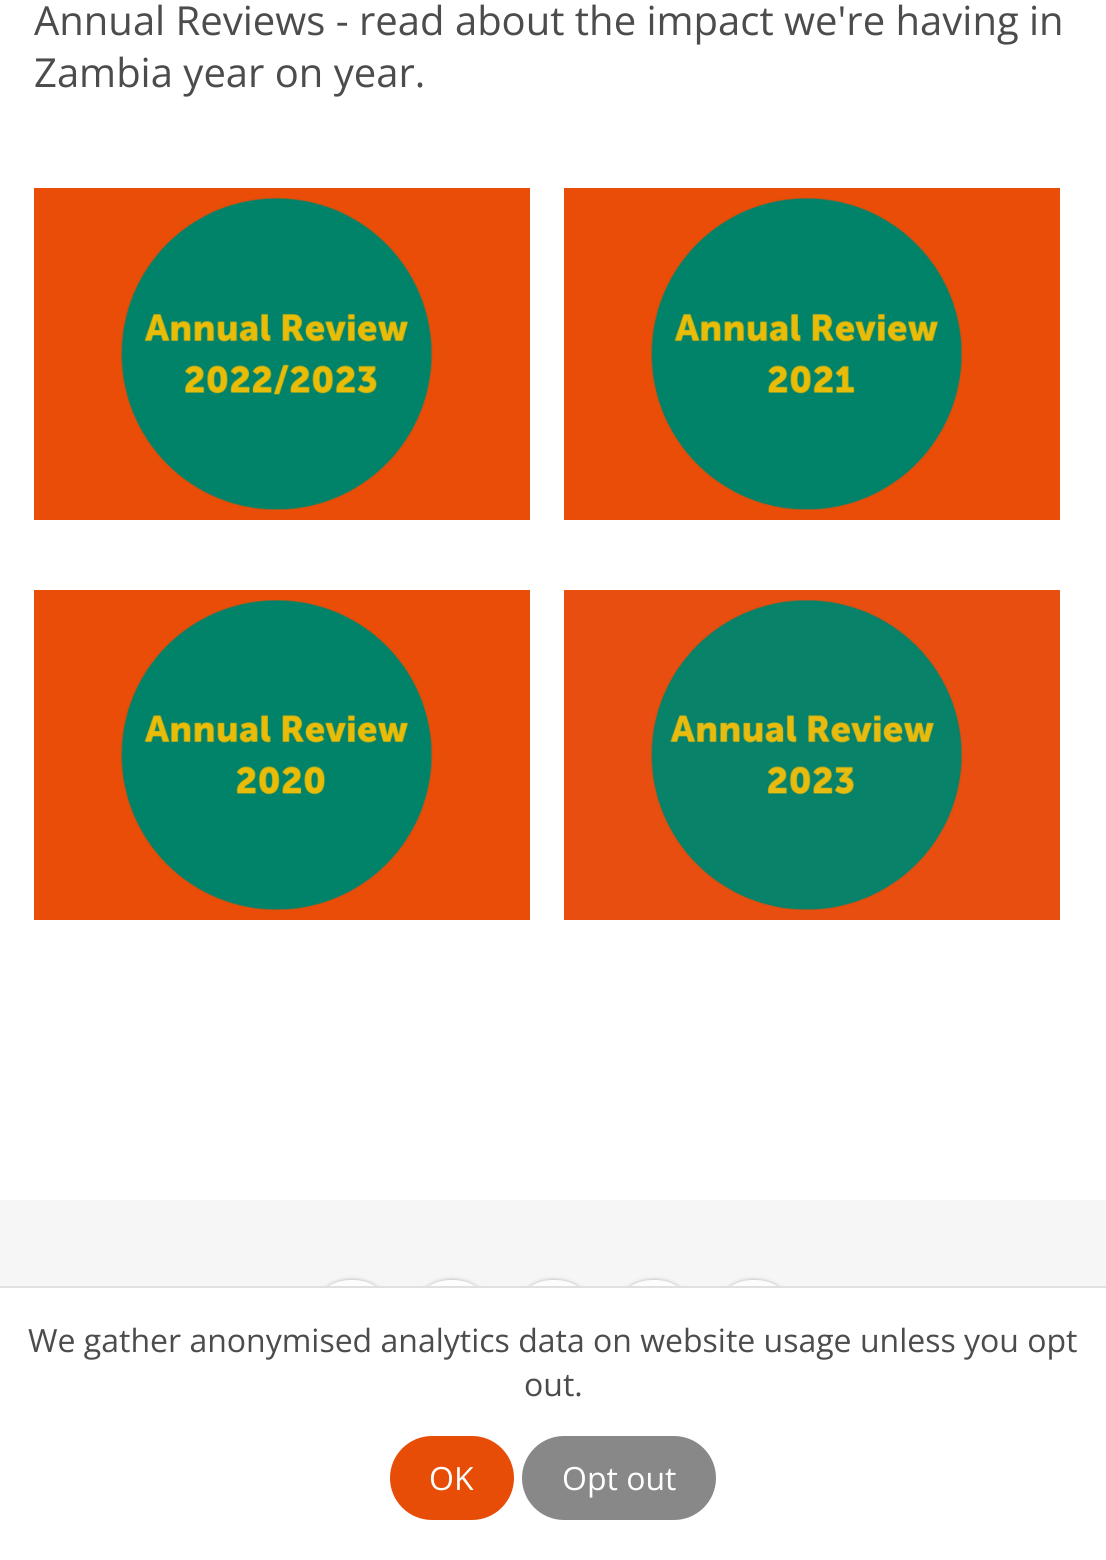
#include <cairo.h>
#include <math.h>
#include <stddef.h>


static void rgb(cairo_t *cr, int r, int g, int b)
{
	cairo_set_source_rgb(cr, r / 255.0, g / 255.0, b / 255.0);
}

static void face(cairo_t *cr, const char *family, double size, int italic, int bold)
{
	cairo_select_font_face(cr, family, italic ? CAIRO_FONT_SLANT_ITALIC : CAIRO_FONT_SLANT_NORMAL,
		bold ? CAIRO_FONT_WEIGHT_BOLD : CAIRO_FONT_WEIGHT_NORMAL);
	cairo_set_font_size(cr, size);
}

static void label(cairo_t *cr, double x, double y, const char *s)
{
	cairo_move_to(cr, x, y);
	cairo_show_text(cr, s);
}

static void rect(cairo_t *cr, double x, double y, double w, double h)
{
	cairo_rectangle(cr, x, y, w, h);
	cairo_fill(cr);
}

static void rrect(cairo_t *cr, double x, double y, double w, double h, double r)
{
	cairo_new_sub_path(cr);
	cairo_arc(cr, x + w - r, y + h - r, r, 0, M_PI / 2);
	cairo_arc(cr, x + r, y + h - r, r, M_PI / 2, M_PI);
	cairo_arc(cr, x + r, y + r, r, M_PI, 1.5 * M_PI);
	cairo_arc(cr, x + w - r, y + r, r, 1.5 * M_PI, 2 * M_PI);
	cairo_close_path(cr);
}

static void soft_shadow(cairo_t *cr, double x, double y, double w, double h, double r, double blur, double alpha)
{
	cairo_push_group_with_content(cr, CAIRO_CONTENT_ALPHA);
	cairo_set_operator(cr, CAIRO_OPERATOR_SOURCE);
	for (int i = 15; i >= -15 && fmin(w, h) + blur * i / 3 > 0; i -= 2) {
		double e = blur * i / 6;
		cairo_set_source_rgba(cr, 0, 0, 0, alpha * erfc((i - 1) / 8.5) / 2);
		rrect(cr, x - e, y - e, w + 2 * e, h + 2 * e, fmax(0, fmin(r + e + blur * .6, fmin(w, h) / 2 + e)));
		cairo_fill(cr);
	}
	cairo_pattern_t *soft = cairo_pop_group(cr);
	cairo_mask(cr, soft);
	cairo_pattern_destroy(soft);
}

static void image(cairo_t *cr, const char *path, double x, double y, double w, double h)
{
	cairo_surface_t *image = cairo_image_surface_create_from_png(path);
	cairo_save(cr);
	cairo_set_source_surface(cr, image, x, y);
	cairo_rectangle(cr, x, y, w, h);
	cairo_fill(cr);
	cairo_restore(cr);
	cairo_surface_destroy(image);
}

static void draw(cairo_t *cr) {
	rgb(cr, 255, 255, 255);
	cairo_paint(cr);
	face(cr, "Open Sans", 40, 0, 0);
	rgb(cr, 76, 76, 76);
	label(cr, 34, 35, "Annual Reviews - read about the impact we're having in");
	label(cr, 34, 87, "Zambia year on year.");
	image(cr, "image0.png", 34, 188, 496, 332);
	image(cr, "image1.png", 564, 188, 496, 332);
	image(cr, "image2.png", 34, 590, 496, 330);
	image(cr, "image3.png", 564, 590, 496, 330);
	rgb(cr, 246, 246, 246);
	rect(cr, 0, 1200, 1106, 86);
	rgb(cr, 49, 49, 49);
	soft_shadow(cr, 310, 1280, 84, 84, 40, 2, 0.4);
	rgb(cr, 253, 253, 253);
	rrect(cr, 310, 1280, 84, 84, 40);
	cairo_fill(cr);
	rgb(cr, 49, 49, 49);
	soft_shadow(cr, 410, 1280, 84, 84, 40, 2, 0.4);
	rgb(cr, 253, 253, 253);
	rrect(cr, 410, 1280, 84, 84, 40);
	cairo_fill(cr);
	rgb(cr, 49, 49, 49);
	soft_shadow(cr, 512, 1280, 84, 84, 40, 2, 0.4);
	rgb(cr, 253, 253, 253);
	rrect(cr, 512, 1280, 84, 84, 40);
	cairo_fill(cr);
	rgb(cr, 49, 49, 49);
	soft_shadow(cr, 612, 1280, 84, 84, 40, 2, 0.4);
	rgb(cr, 253, 253, 253);
	rrect(cr, 612, 1280, 84, 84, 40);
	cairo_fill(cr);
	rgb(cr, 49, 49, 49);
	soft_shadow(cr, 712, 1280, 84, 84, 40, 2, 0.4);
	rgb(cr, 253, 253, 253);
	rrect(cr, 712, 1280, 84, 84, 40);
	cairo_fill(cr);
	rgb(cr, 255, 255, 255);
	rect(cr, 306, 1288, 494, 80);
	rgb(cr, 224, 224, 224);
	rect(cr, 0, 1286, 1106, 2);
	face(cr, "Open Sans", 32, 0, 0);
	rgb(cr, 76, 76, 76);
	label(cr, 28, 1352, "We gather anonymised analytics data on website usage unless you opt");
	label(cr, 524, 1396, "out.");
	rgb(cr, 231, 77, 6);
	rrect(cr, 390, 1436, 124, 84, 42);
	cairo_fill(cr);
	rgb(cr, 255, 255, 255);
	label(cr, 429, 1490, "OK");
	rgb(cr, 136, 136, 136);
	rrect(cr, 522, 1436, 194, 84, 42);
	cairo_fill(cr);
	rgb(cr, 255, 255, 255);
	label(cr, 562, 1490, "Opt out");
}

int main(void) {
	cairo_surface_t *surface = cairo_image_surface_create(CAIRO_FORMAT_RGB24, 1106, 1560);
	cairo_t *cr = cairo_create(surface);
	cairo_font_options_t *options = cairo_font_options_create();
	cairo_font_options_set_hint_metrics(options, CAIRO_HINT_METRICS_OFF);
	cairo_font_options_set_hint_style(options, CAIRO_HINT_STYLE_NONE);
	cairo_set_font_options(cr, options);
	cairo_set_miter_limit(cr, 4);
	draw(cr);
	cairo_surface_write_to_png(surface, "render.png");
	cairo_font_options_destroy(options);
	cairo_destroy(cr);
	cairo_surface_destroy(surface);
	return 0;
}
